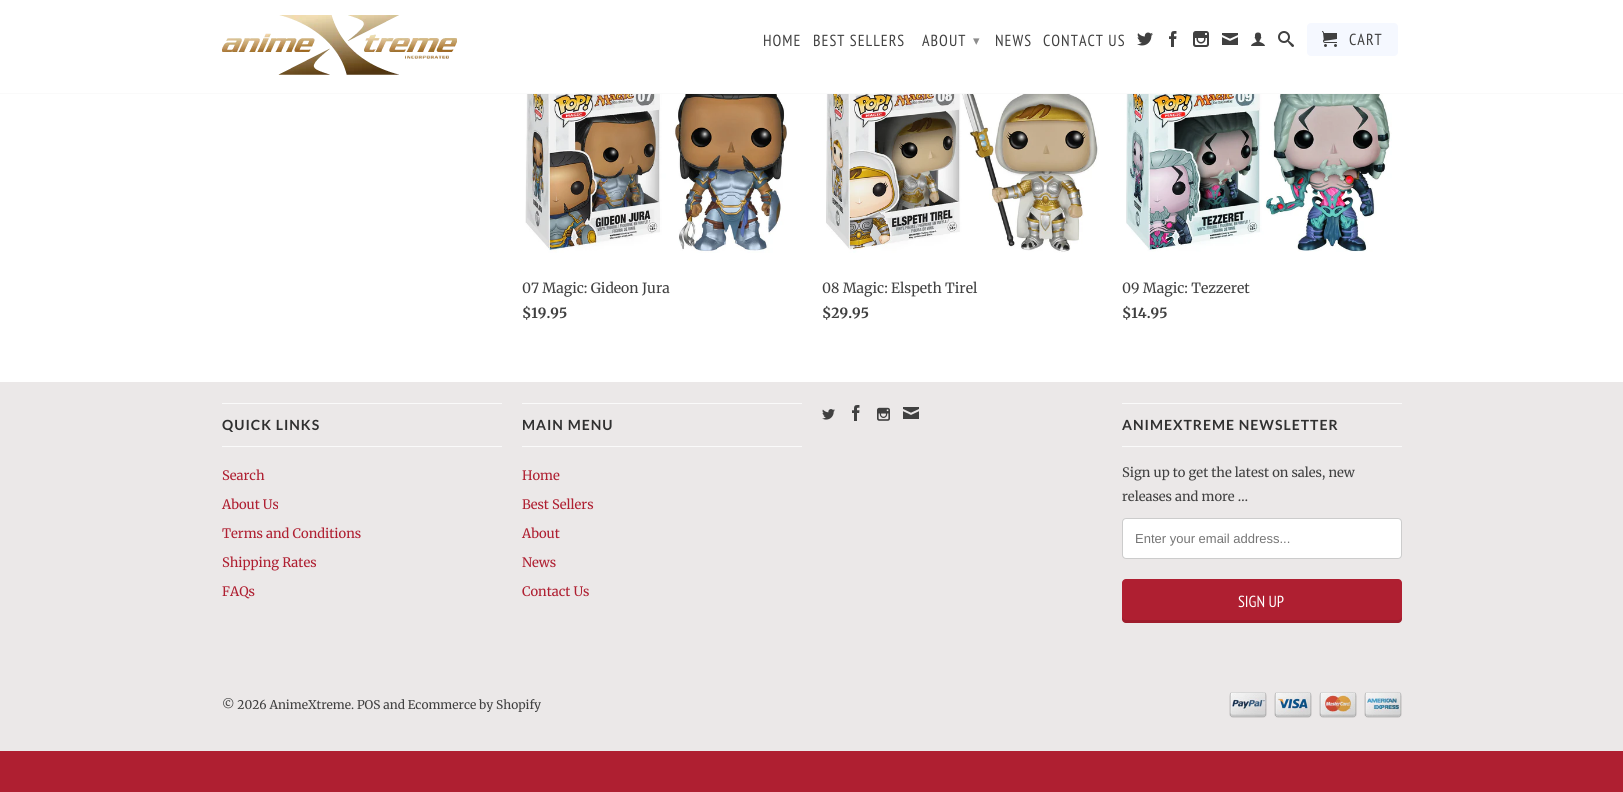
#include <cairo.h>
#include <math.h>
#include <stddef.h>


static void rgb(cairo_t *cr, int r, int g, int b)
{
	cairo_set_source_rgb(cr, r / 255.0, g / 255.0, b / 255.0);
}

static void face(cairo_t *cr, const char *family, double size, int italic, int bold)
{
	cairo_select_font_face(cr, family, italic ? CAIRO_FONT_SLANT_ITALIC : CAIRO_FONT_SLANT_NORMAL,
		bold ? CAIRO_FONT_WEIGHT_BOLD : CAIRO_FONT_WEIGHT_NORMAL);
	cairo_set_font_size(cr, size);
}

static void label(cairo_t *cr, double x, double y, const char *s)
{
	cairo_move_to(cr, x, y);
	cairo_show_text(cr, s);
}

static void tracked(cairo_t *cr, double x, double y, const char *s, double letter, double word)
{
	cairo_move_to(cr, x, y);
	while (*s) {
		char ch[5] = {0};
		int n = 0;
		do ch[n++] = *s++; while ((*s & 0xC0) == 0x80);
		cairo_show_text(cr, ch);
		cairo_rel_move_to(cr, letter + word * (*ch == ' '), 0);
	}
}

static void rect(cairo_t *cr, double x, double y, double w, double h)
{
	cairo_rectangle(cr, x, y, w, h);
	cairo_fill(cr);
}

static void rrect(cairo_t *cr, double x, double y, double w, double h, double r)
{
	cairo_new_sub_path(cr);
	cairo_arc(cr, x + w - r, y + h - r, r, 0, M_PI / 2);
	cairo_arc(cr, x + r, y + h - r, r, M_PI / 2, M_PI);
	cairo_arc(cr, x + r, y + r, r, M_PI, 1.5 * M_PI);
	cairo_arc(cr, x + w - r, y + r, r, 1.5 * M_PI, 2 * M_PI);
	cairo_close_path(cr);
}

static void image(cairo_t *cr, const char *path, double x, double y, double w, double h)
{
	cairo_surface_t *image = cairo_image_surface_create_from_png(path);
	cairo_save(cr);
	cairo_set_source_surface(cr, image, x, y);
	cairo_rectangle(cr, x, y, w, h);
	cairo_fill(cr);
	cairo_restore(cr);
	cairo_surface_destroy(image);
}

static void draw(cairo_t *cr) {
	rgb(cr, 255, 255, 255);
	cairo_paint(cr);
	rgb(cr, 250, 250, 250);
	rect(cr, 0, 93, 1623, 1);
	image(cr, "image0.png", 222, 15, 235, 60);
	face(cr, "PT Sans Narrow", 16, 0, 0);
	rgb(cr, 64, 64, 64);
	tracked(cr, 763, 46, "HOME", 1, 0);
	tracked(cr, 813, 46, "BEST SELLERS", 1, 0);
	tracked(cr, 922, 46, "ABOUT", 1, 0);
	face(cr, "DejaVu Sans", 13, 0, 0);
	rgb(cr, 140, 140, 140);
	tracked(cr, 973, 45, "▾", 1, 0);
	face(cr, "PT Sans Narrow", 16, 0, 0);
	rgb(cr, 64, 64, 64);
	tracked(cr, 995, 46, "NEWS", 1, 0);
	tracked(cr, 1043, 46, "CONTACT US", 1, 0);
	image(cr, "image1.png", 1137, 32, 16, 14);
	image(cr, "image2.png", 1169, 31, 8, 16);
	image(cr, "image3.png", 1193, 31, 16, 16);
	image(cr, "image4.png", 1222, 33, 16, 12);
	image(cr, "image5.png", 1251, 32, 14, 14);
	image(cr, "image6.png", 1278, 31, 16, 16);
	rgb(cr, 245, 248, 255);
	rrect(cr, 1307, 23, 91, 33, 4);
	cairo_fill(cr);
	image(cr, "image7.png", 1322, 31, 15, 16);
	rgb(cr, 64, 64, 64);
	tracked(cr, 1349, 45, "CART", 1, 0);
	image(cr, "image8.png", 525, 94, 262, 159);
	face(cr, "Merriweather", 14, 0, 0);
	label(cr, 522, 293, "07 Magic: Gideon Jura");
	face(cr, "Merriweather", 14, 0, 1);
	label(cr, 522, 318, "$19.95");
	image(cr, "image9.png", 826, 94, 273, 159);
	face(cr, "Merriweather", 14, 0, 0);
	label(cr, 822, 293, "08 Magic: Elspeth Tirel");
	face(cr, "Merriweather", 14, 0, 1);
	label(cr, 822, 318, "$29.95");
	image(cr, "image10.png", 1126, 94, 266, 158);
	face(cr, "Merriweather", 14, 0, 0);
	label(cr, 1122, 293, "09 Magic: Tezzeret");
	face(cr, "Merriweather", 14, 0, 1);
	label(cr, 1122, 318, "$14.95");
	rgb(cr, 235, 232, 232);
	rect(cr, 0, 382, 1623, 369);
	image(cr, "image11.png", 822, 409, 13, 11);
	image(cr, "image12.png", 852, 405, 8, 16);
	image(cr, "image13.png", 877, 407, 13, 14);
	image(cr, "image14.png", 903, 407, 16, 12);
	rgb(cr, 250, 250, 250);
	rect(cr, 222, 403, 280, 1);
	rect(cr, 222, 446, 280, 1);
	face(cr, "Lato", 14, 0, 1);
	rgb(cr, 48, 48, 48);
	tracked(cr, 222, 430, "QUICK LINKS", 1, 0);
	face(cr, "Merriweather", 13, 0, 0);
	rgb(cr, 175, 31, 49);
	label(cr, 222, 480, "Search");
	label(cr, 222, 509, "About Us");
	label(cr, 222, 538, "Terms and Conditions");
	label(cr, 222, 567, "Shipping Rates");
	label(cr, 222, 596, "FAQs");
	rgb(cr, 250, 250, 250);
	rect(cr, 522, 403, 280, 1);
	rect(cr, 522, 446, 280, 1);
	face(cr, "Lato", 14, 0, 1);
	rgb(cr, 48, 48, 48);
	tracked(cr, 522, 430, "MAIN MENU", 1, 0);
	face(cr, "Merriweather", 13, 0, 0);
	rgb(cr, 175, 31, 49);
	label(cr, 522, 480, "Home");
	label(cr, 522, 509, "Best Sellers");
	label(cr, 522, 538, "About");
	label(cr, 522, 567, "News");
	label(cr, 522, 596, "Contact Us");
	rgb(cr, 250, 250, 250);
	rect(cr, 1122, 403, 280, 1);
	rect(cr, 1122, 446, 280, 1);
	face(cr, "Lato", 14, 0, 1);
	rgb(cr, 48, 48, 48);
	tracked(cr, 1122, 430, "ANIMEXTREME NEWSLETTER", 1, 0);
	face(cr, "Merriweather", 13, 0, 0);
	rgb(cr, 64, 64, 64);
	label(cr, 1122, 477, "Sign up to get the latest on sales, new");
	label(cr, 1122, 501, "releases and more …");
	rgb(cr, 255, 255, 255);
	rrect(cr, 1122.5, 518.5, 279, 40, 3.5);
	cairo_fill_preserve(cr);
	rgb(cr, 204, 204, 204);
	cairo_set_line_width(cr, 1);
	cairo_stroke(cr);
	face(cr, "Liberation Sans", 13, 0, 0);
	rgb(cr, 117, 117, 117);
	label(cr, 1135, 543, "Enter your email address...");
	rgb(cr, 175, 31, 49);
	rrect(cr, 1122, 579, 280, 44, 4);
	cairo_fill(cr);
	cairo_set_source_rgba(cr, 0, 0, 0, 0.1);
	cairo_new_path(cr);
	cairo_move_to(cr, 1122, 616);
	cairo_curve_to(cr, 1122, 619, 1122, 622, 1125, 623);
	cairo_line_to(cr, 1399, 623);
	cairo_curve_to(cr, 1402, 622, 1402, 619, 1402, 616);
	cairo_curve_to(cr, 1402, 618, 1400, 620, 1398, 620);
	cairo_line_to(cr, 1126, 620);
	cairo_curve_to(cr, 1124, 620, 1122, 618, 1122, 616);
	cairo_close_path(cr);
	cairo_fill(cr);
	face(cr, "PT Sans Narrow", 16, 0, 0);
	rgb(cr, 255, 255, 255);
	label(cr, 1238, 607, "SIGN UP");
	face(cr, "Merriweather", 12, 0, 0);
	rgb(cr, 64, 64, 64);
	label(cr, 222, 709, "© 2026 AnimeXtreme. POS and Ecommerce by Shopify");
	image(cr, "image15.png", 1229, 692, 38, 26);
	image(cr, "image16.png", 1274, 692, 38, 26);
	image(cr, "image17.png", 1319, 692, 38, 26);
	image(cr, "image18.png", 1364, 692, 38, 26);
	rgb(cr, 175, 31, 49);
	rect(cr, 0, 751, 1623, 41);
}

int main(void) {
	cairo_surface_t *surface = cairo_image_surface_create(CAIRO_FORMAT_RGB24, 1623, 792);
	cairo_t *cr = cairo_create(surface);
	cairo_font_options_t *options = cairo_font_options_create();
	cairo_font_options_set_hint_metrics(options, CAIRO_HINT_METRICS_OFF);
	cairo_font_options_set_hint_style(options, CAIRO_HINT_STYLE_NONE);
	cairo_set_font_options(cr, options);
	cairo_set_miter_limit(cr, 4);
	draw(cr);
	cairo_surface_write_to_png(surface, "render.png");
	cairo_font_options_destroy(options);
	cairo_destroy(cr);
	cairo_surface_destroy(surface);
	return 0;
}
